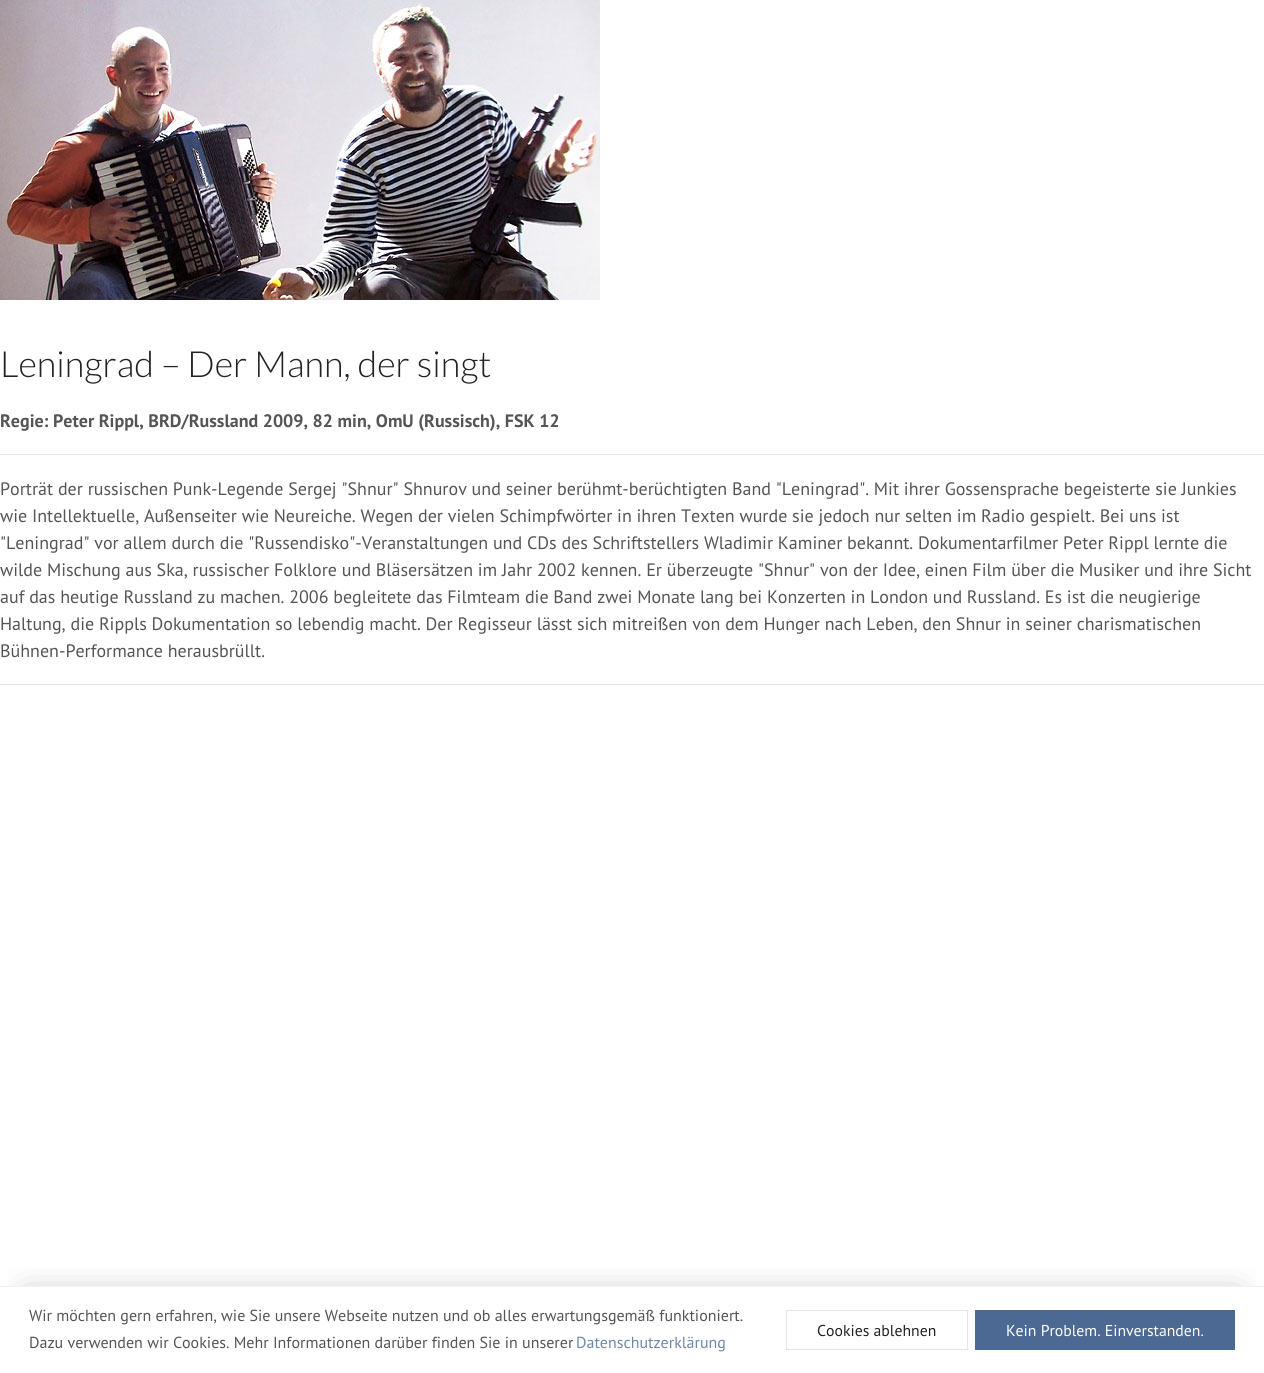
#include <cairo.h>
#include <math.h>
#include <stddef.h>


static void rgb(cairo_t *cr, int r, int g, int b)
{
	cairo_set_source_rgb(cr, r / 255.0, g / 255.0, b / 255.0);
}

static void face(cairo_t *cr, const char *family, double size, int italic, int bold)
{
	cairo_select_font_face(cr, family, italic ? CAIRO_FONT_SLANT_ITALIC : CAIRO_FONT_SLANT_NORMAL,
		bold ? CAIRO_FONT_WEIGHT_BOLD : CAIRO_FONT_WEIGHT_NORMAL);
	cairo_set_font_size(cr, size);
}

static void label(cairo_t *cr, double x, double y, const char *s)
{
	cairo_move_to(cr, x, y);
	cairo_show_text(cr, s);
}

static void rect(cairo_t *cr, double x, double y, double w, double h)
{
	cairo_rectangle(cr, x, y, w, h);
	cairo_fill(cr);
}

static void rrect(cairo_t *cr, double x, double y, double w, double h, double r)
{
	cairo_new_sub_path(cr);
	cairo_arc(cr, x + w - r, y + h - r, r, 0, M_PI / 2);
	cairo_arc(cr, x + r, y + h - r, r, M_PI / 2, M_PI);
	cairo_arc(cr, x + r, y + r, r, M_PI, 1.5 * M_PI);
	cairo_arc(cr, x + w - r, y + r, r, 1.5 * M_PI, 2 * M_PI);
	cairo_close_path(cr);
}

static void soft_shadow(cairo_t *cr, double x, double y, double w, double h, double r, double blur, double alpha)
{
	cairo_push_group_with_content(cr, CAIRO_CONTENT_ALPHA);
	cairo_set_operator(cr, CAIRO_OPERATOR_SOURCE);
	for (int i = 15; i >= -15 && fmin(w, h) + blur * i / 3 > 0; i -= 2) {
		double e = blur * i / 6;
		cairo_set_source_rgba(cr, 0, 0, 0, alpha * erfc((i - 1) / 8.5) / 2);
		rrect(cr, x - e, y - e, w + 2 * e, h + 2 * e, fmax(0, fmin(r + e + blur * .6, fmin(w, h) / 2 + e)));
		cairo_fill(cr);
	}
	cairo_pattern_t *soft = cairo_pop_group(cr);
	cairo_mask(cr, soft);
	cairo_pattern_destroy(soft);
}

static void image(cairo_t *cr, const char *path, double x, double y, double w, double h)
{
	cairo_surface_t *image = cairo_image_surface_create_from_png(path);
	cairo_save(cr);
	cairo_set_source_surface(cr, image, x, y);
	cairo_rectangle(cr, x, y, w, h);
	cairo_fill(cr);
	cairo_restore(cr);
	cairo_surface_destroy(image);
}

static void draw(cairo_t *cr) {
	rgb(cr, 255, 255, 255);
	cairo_paint(cr);
	image(cr, "image0.png", 0, 0, 600, 300);
	face(cr, "Lato Light", 36, 0, 0);
	rgb(cr, 34, 34, 34);
	label(cr, 0, 377, "Leningrad – Der Mann, der singt");
	face(cr, "PT Sans", 18, 0, 1);
	rgb(cr, 85, 85, 85);
	label(cr, 0, 427, "Regie: Peter Rippl, BRD/Russland 2009, 82 min, OmU (Russisch), FSK 12");
	rgb(cr, 229, 229, 229);
	rect(cr, 0, 454, 1264, 1);
	face(cr, "PT Sans", 18, 0, 0);
	rgb(cr, 85, 85, 85);
	label(cr, 0, 495, "Porträt der russischen Punk-Legende Sergej \"Shnur\" Shnurov und seiner berühmt-berüchtigten Band \"Leningrad\". Mit ihrer Gossensprache begeisterte sie Junkies");
	label(cr, 0, 522, "wie Intellektuelle, Außenseiter wie Neureiche. Wegen der vielen Schimpfwörter in ihren Texten wurde sie jedoch nur selten im Radio gespielt. Bei uns ist");
	label(cr, 0, 549, "\"Leningrad\" vor allem durch die \"Russendisko\"-Veranstaltungen und CDs des Schriftstellers Wladimir Kaminer bekannt. Dokumentarfilmer Peter Rippl lernte die");
	label(cr, 0, 576, "wilde Mischung aus Ska, russischer Folklore und Bläsersätzen im Jahr 2002 kennen. Er überzeugte \"Shnur\" von der Idee, einen Film über die Musiker und ihre Sicht");
	label(cr, 0, 603, "auf das heutige Russland zu machen. 2006 begleitete das Filmteam die Band zwei Monate lang bei Konzerten in London und Russland. Es ist die neugierige");
	label(cr, 0, 630, "Haltung, die Rippls Dokumentation so lebendig macht. Der Regisseur lässt sich mitreißen von dem Hunger nach Leben, den Shnur in seiner charismatischen");
	label(cr, 0, 657, "Bühnen-Performance herausbrüllt.");
	rgb(cr, 229, 229, 229);
	rect(cr, 0, 684, 1264, 1);
	cairo_save(cr);
	cairo_rectangle(cr, 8, 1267, 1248, 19);
	cairo_clip(cr);
	rgb(cr, 120, 120, 120);
	soft_shadow(cr, 27, 1302, 1210, 33, 0, 18, 0.8);
	cairo_restore(cr);
	rgb(cr, 240, 240, 240);
	rect(cr, 0, 1286, 1264, 1);
	face(cr, "PT Sans", 16, 0, 0);
	rgb(cr, 85, 85, 85);
	label(cr, 29, 1321, "Wir möchten gern erfahren, wie Sie unsere Webseite nutzen und ob alles erwartungsgemäß funktioniert.");
	label(cr, 29, 1348, "Dazu verwenden wir Cookies. Mehr Informationen darüber finden Sie in unserer");
	rgb(cr, 111, 135, 168);
	label(cr, 576, 1348, "Datenschutzerklärung");
	cairo_rectangle(cr, 786.5, 1310.5, 181, 39);
	rgb(cr, 229, 229, 229);
	cairo_set_line_width(cr, 1);
	cairo_stroke(cr);
	face(cr, "PT Sans", 15.75, 0, 0);
	rgb(cr, 34, 34, 34);
	label(cr, 817, 1336, "Cookies ablehnen");
	rgb(cr, 75, 105, 146);
	rect(cr, 975, 1310, 260, 40);
	rgb(cr, 255, 255, 255);
	label(cr, 1006, 1336, "Kein Problem. Einverstanden.");
}

int main(void) {
	cairo_surface_t *surface = cairo_image_surface_create(CAIRO_FORMAT_RGB24, 1264, 1373);
	cairo_t *cr = cairo_create(surface);
	cairo_font_options_t *options = cairo_font_options_create();
	cairo_font_options_set_hint_metrics(options, CAIRO_HINT_METRICS_OFF);
	cairo_font_options_set_hint_style(options, CAIRO_HINT_STYLE_NONE);
	cairo_set_font_options(cr, options);
	cairo_set_miter_limit(cr, 4);
	draw(cr);
	cairo_surface_write_to_png(surface, "render.png");
	cairo_font_options_destroy(options);
	cairo_destroy(cr);
	cairo_surface_destroy(surface);
	return 0;
}
